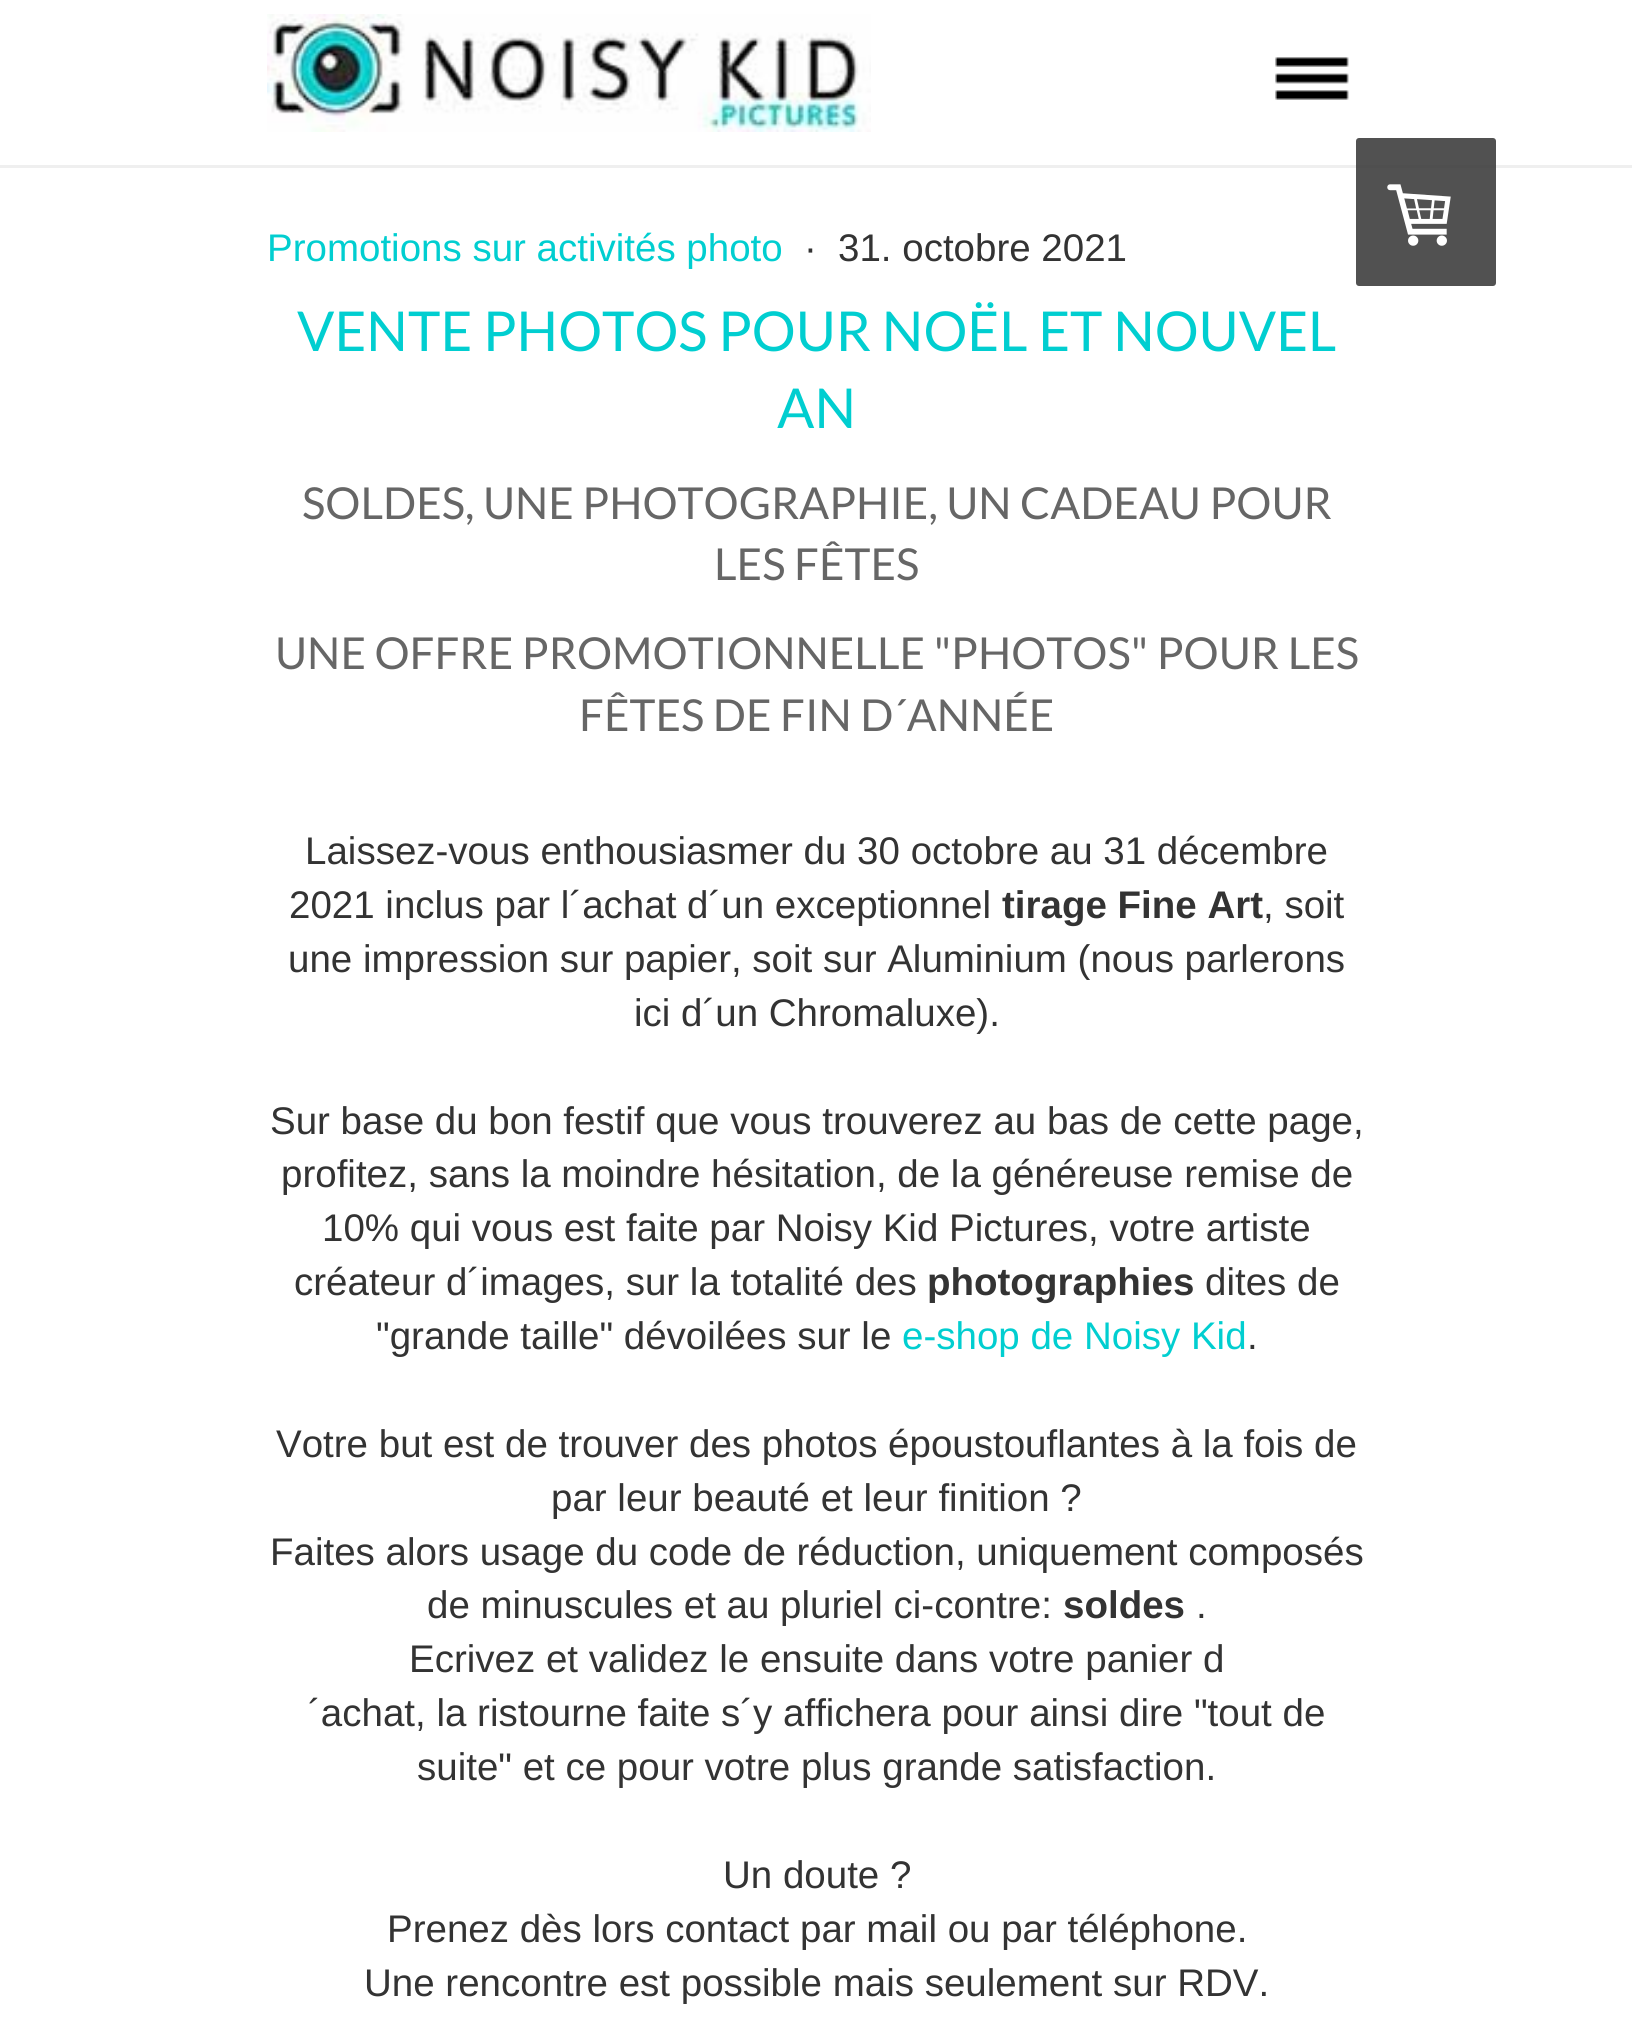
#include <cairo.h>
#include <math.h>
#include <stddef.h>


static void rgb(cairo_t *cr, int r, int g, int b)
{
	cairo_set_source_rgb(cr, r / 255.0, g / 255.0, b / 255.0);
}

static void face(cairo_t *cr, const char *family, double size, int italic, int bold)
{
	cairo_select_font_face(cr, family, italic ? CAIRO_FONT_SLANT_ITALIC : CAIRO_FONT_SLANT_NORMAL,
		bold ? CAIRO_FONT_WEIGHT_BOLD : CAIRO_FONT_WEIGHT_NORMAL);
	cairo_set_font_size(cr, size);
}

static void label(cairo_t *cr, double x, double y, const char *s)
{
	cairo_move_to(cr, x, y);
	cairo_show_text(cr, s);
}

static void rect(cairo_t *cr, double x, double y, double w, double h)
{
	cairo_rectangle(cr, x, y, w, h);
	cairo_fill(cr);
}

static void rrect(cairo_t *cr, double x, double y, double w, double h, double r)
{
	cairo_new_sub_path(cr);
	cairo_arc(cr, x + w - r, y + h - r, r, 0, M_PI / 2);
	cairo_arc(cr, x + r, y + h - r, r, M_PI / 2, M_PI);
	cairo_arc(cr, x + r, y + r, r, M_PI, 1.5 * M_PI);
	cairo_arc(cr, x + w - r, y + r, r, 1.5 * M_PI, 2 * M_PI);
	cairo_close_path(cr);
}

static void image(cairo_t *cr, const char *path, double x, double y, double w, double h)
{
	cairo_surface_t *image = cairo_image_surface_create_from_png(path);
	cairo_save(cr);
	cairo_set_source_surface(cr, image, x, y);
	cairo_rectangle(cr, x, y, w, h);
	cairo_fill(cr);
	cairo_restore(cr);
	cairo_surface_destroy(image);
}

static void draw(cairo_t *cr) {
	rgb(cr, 255, 255, 255);
	cairo_paint(cr);
	rgb(cr, 239, 239, 239);
	rect(cr, 0, 165, 1632, 3);
	image(cr, "image0.png", 267, 14, 604, 118);
	image(cr, "image1.png", 1275, 57, 74, 43);
	cairo_set_source_rgba(cr, 0.2, 0.2, 0.2, 0.85);
	rrect(cr, 1356, 138, 140, 148, 3);
	cairo_fill(cr);
	image(cr, "image2.png", 1387, 184, 64, 62);
	face(cr, "Liberation Sans", 38.5, 0, 0);
	rgb(cr, 1, 206, 208);
	label(cr, 267, 261, "Promotions sur activités photo");
	rgb(cr, 51, 51, 51);
	label(cr, 804, 261, "·");
	label(cr, 838, 261, "31. octobre 2021");
	face(cr, "Lato", 55, 0, 0);
	rgb(cr, 1, 206, 208);
	label(cr, 297, 351, "VENTE PHOTOS POUR NOËL ET NOUVEL");
	label(cr, 777, 428, "AN");
	face(cr, "Lato", 44, 0, 0);
	rgb(cr, 102, 102, 102);
	label(cr, 302, 519, "SOLDES, UNE PHOTOGRAPHIE, UN CADEAU POUR");
	label(cr, 714, 580, "LES FÊTES");
	label(cr, 275, 669, "UNE OFFRE PROMOTIONNELLE \"PHOTOS\" POUR LES");
	label(cr, 579, 731, "FÊTES DE FIN D´ANNÉE");
	face(cr, "Liberation Sans", 38.5, 0, 0);
	rgb(cr, 51, 51, 51);
	label(cr, 305, 864, "Laissez-vous enthousiasmer du 30 octobre au 31 décembre");
	label(cr, 289, 918, "2021 inclus par l´achat d´un exceptionnel");
	face(cr, "Liberation Sans", 38.5, 0, 1);
	label(cr, 1002, 918, "tirage Fine Art");
	face(cr, "Liberation Sans", 38.5, 0, 0);
	label(cr, 1263, 918, ", soit");
	label(cr, 288, 972, "une impression sur papier, soit sur Aluminium (nous parlerons");
	label(cr, 634, 1026, "ici d´un Chromaluxe).");
	label(cr, 270, 1134, "Sur base du bon festif que vous trouverez au bas de cette page,");
	label(cr, 281, 1187, "profitez, sans la moindre hésitation, de la généreuse remise de");
	label(cr, 322, 1241, "10% qui vous est faite par Noisy Kid Pictures, votre artiste");
	label(cr, 294, 1295, "créateur d´images, sur la totalité des");
	face(cr, "Liberation Sans", 38.5, 0, 1);
	label(cr, 927, 1295, "photographies");
	face(cr, "Liberation Sans", 38.5, 0, 0);
	label(cr, 1205, 1295, "dites de");
	label(cr, 376, 1349, "\"grande taille\" dévoilées sur le");
	rgb(cr, 1, 206, 208);
	label(cr, 902, 1349, "e-shop de Noisy Kid");
	rgb(cr, 51, 51, 51);
	label(cr, 1247, 1349, ".");
	label(cr, 276, 1457, "Votre but est de trouver des photos époustouflantes à la fois de");
	label(cr, 551, 1511, "par leur beauté et leur finition ?");
	label(cr, 270, 1565, "Faites alors usage du code de réduction, uniquement composés");
	label(cr, 427, 1618, "de minuscules et au pluriel ci-contre:");
	face(cr, "Liberation Sans", 38.5, 0, 1);
	label(cr, 1063, 1618, "soldes");
	face(cr, "Liberation Sans", 38.5, 0, 0);
	label(cr, 1196, 1618, ".");
	label(cr, 409, 1672, "Ecrivez et validez le ensuite dans votre panier d");
	label(cr, 308, 1726, "´achat, la ristourne faite s´y affichera pour ainsi dire \"tout de");
	label(cr, 417, 1780, "suite\" et ce pour votre plus grande satisfaction.");
	label(cr, 723, 1888, "Un doute ?");
	label(cr, 387, 1942, "Prenez dès lors contact par mail ou par téléphone.");
	label(cr, 364, 1996, "Une rencontre est possible mais seulement sur RDV.");
}

int main(void) {
	cairo_surface_t *surface = cairo_image_surface_create(CAIRO_FORMAT_RGB24, 1632, 2040);
	cairo_t *cr = cairo_create(surface);
	cairo_font_options_t *options = cairo_font_options_create();
	cairo_font_options_set_hint_metrics(options, CAIRO_HINT_METRICS_OFF);
	cairo_font_options_set_hint_style(options, CAIRO_HINT_STYLE_NONE);
	cairo_set_font_options(cr, options);
	cairo_set_miter_limit(cr, 4);
	draw(cr);
	cairo_surface_write_to_png(surface, "render.png");
	cairo_font_options_destroy(options);
	cairo_destroy(cr);
	cairo_surface_destroy(surface);
	return 0;
}
